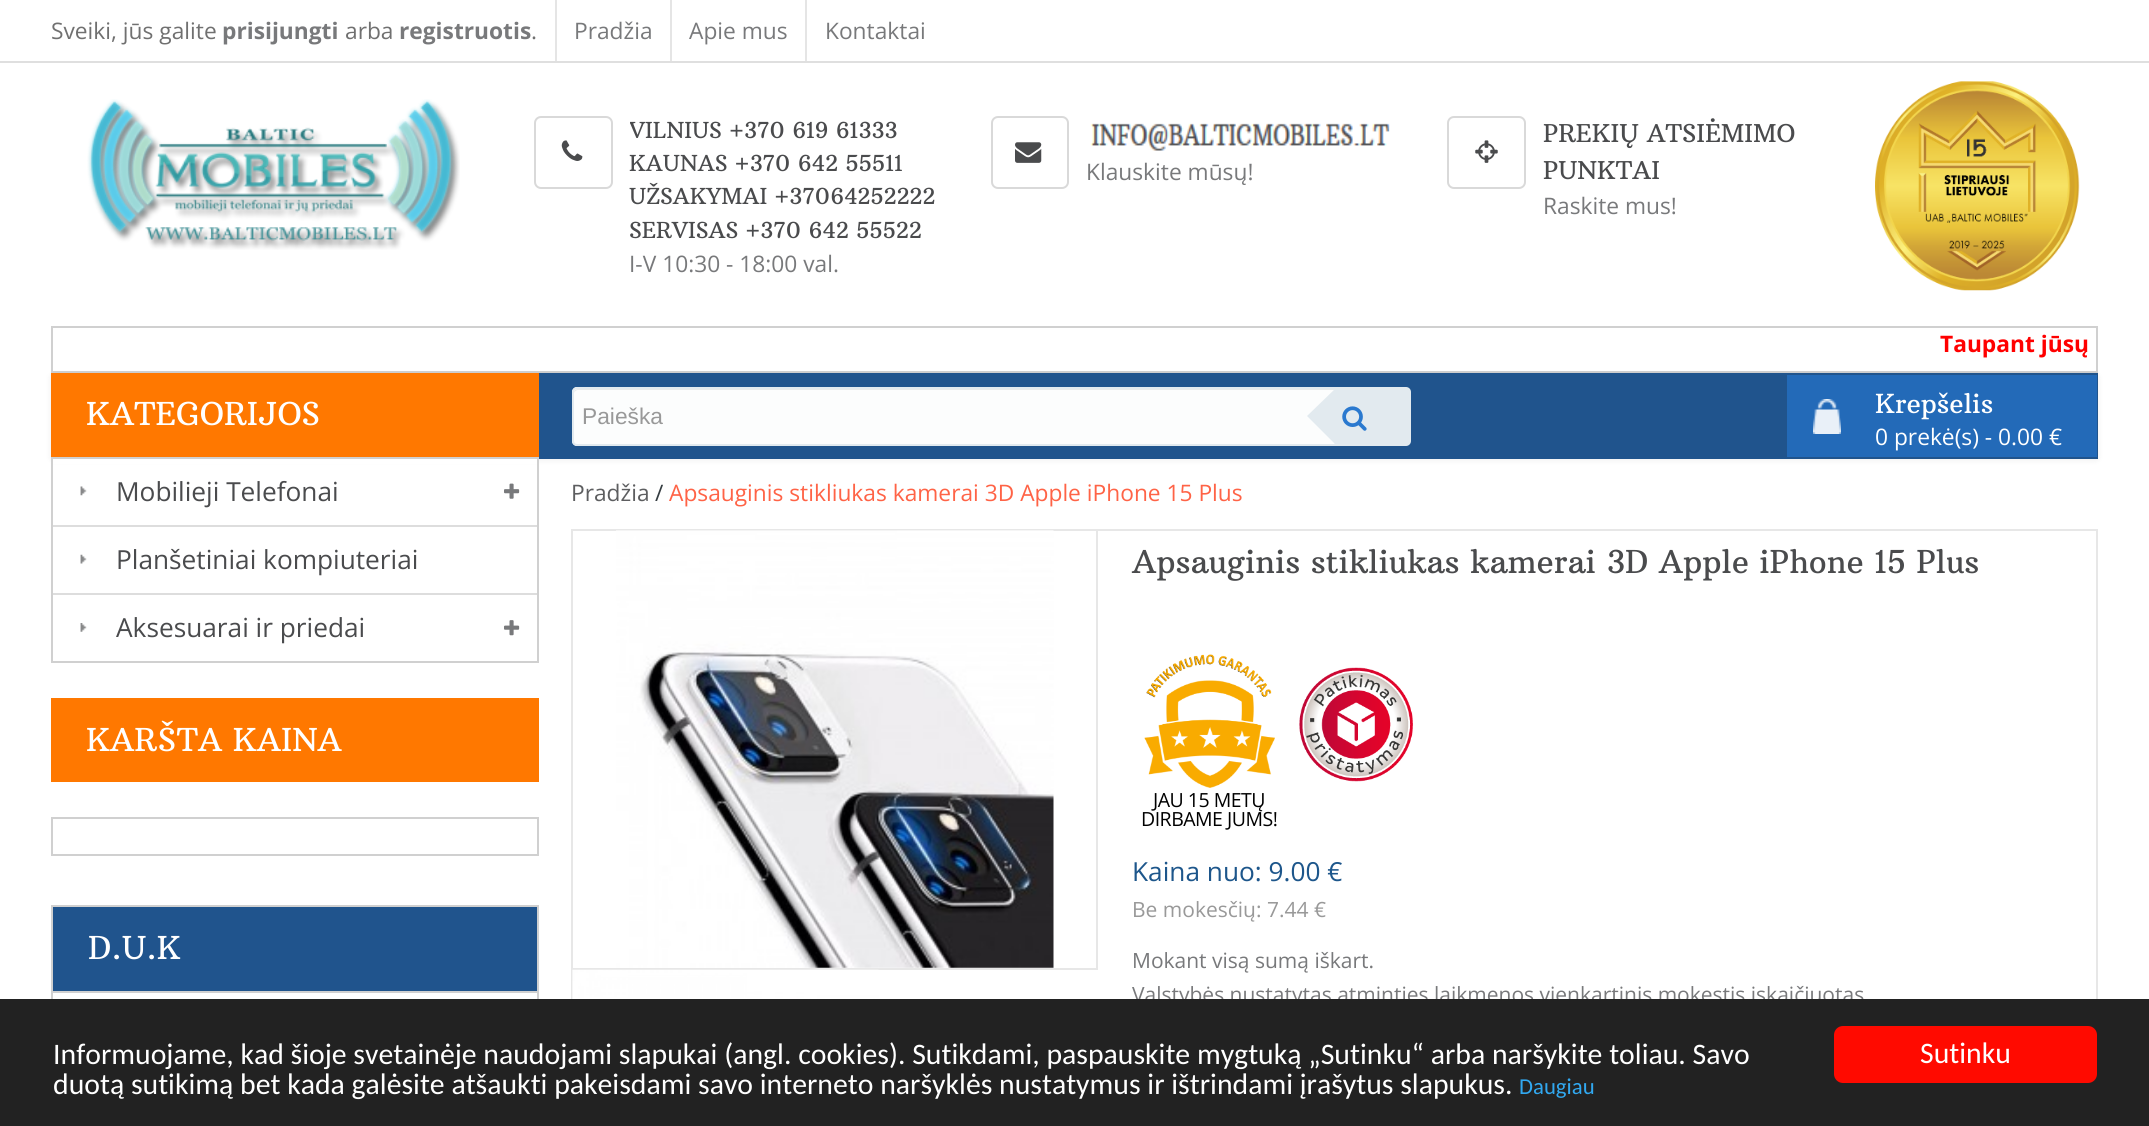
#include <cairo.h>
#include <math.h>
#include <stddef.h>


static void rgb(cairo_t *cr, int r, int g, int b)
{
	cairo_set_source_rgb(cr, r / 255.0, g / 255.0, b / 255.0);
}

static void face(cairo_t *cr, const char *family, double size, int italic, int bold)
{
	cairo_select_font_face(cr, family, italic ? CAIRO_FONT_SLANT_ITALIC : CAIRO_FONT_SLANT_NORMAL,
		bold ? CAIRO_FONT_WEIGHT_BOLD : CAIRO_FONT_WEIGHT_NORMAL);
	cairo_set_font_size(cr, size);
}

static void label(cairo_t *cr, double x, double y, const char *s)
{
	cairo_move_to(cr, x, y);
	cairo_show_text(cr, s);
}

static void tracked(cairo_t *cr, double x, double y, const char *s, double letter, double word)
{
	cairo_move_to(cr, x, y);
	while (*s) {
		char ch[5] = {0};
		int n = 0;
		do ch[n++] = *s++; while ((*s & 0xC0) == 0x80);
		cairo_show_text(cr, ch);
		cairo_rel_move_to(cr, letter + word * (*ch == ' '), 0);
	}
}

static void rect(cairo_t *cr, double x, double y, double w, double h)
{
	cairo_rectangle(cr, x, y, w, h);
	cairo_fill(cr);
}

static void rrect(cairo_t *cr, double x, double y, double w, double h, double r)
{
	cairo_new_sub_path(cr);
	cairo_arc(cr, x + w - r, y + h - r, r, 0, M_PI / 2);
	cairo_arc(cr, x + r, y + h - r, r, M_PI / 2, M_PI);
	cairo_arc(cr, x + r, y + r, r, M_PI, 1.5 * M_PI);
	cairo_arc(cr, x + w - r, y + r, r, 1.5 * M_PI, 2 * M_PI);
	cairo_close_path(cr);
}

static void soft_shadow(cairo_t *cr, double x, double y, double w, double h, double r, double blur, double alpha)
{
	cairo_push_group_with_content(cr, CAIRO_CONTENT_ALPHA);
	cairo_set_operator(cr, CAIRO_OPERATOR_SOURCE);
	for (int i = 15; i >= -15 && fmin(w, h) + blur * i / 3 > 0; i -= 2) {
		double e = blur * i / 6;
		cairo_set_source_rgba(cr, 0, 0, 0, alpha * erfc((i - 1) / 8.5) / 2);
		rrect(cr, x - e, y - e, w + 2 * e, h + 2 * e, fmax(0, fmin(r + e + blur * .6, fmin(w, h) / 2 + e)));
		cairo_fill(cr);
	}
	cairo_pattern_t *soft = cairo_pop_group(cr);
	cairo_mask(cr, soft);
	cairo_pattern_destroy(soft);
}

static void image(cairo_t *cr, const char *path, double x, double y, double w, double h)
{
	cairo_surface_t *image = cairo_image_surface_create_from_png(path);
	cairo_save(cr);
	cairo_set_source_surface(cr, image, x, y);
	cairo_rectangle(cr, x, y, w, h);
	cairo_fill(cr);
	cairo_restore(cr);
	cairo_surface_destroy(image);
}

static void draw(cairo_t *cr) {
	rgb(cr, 255, 255, 255);
	cairo_paint(cr);
	rgb(cr, 223, 223, 223);
	rect(cr, 0, 61, 2149, 2);
	face(cr, "Open Sans", 22.75, 0, 0);
	rgb(cr, 112, 112, 112);
	label(cr, 51, 39, "Sveiki, jūs galite");
	face(cr, "Open Sans", 22.75, 0, 1);
	rgb(cr, 120, 121, 123);
	label(cr, 222, 39, "prisijungti");
	face(cr, "Open Sans", 22.75, 0, 0);
	rgb(cr, 112, 112, 112);
	label(cr, 345, 39, "arba");
	face(cr, "Open Sans", 22.75, 0, 1);
	rgb(cr, 120, 121, 123);
	label(cr, 399, 39, "registruotis");
	face(cr, "Open Sans", 22.75, 0, 0);
	rgb(cr, 112, 112, 112);
	label(cr, 531, 39, ".");
	rgb(cr, 229, 229, 229);
	rect(cr, 555, 0, 2, 61);
	rgb(cr, 120, 121, 123);
	label(cr, 574, 39, "Pradžia");
	rgb(cr, 229, 229, 229);
	rect(cr, 670, 0, 2, 61);
	rgb(cr, 120, 121, 123);
	label(cr, 689, 39, "Apie mus");
	rgb(cr, 229, 229, 229);
	rect(cr, 805, 0, 2, 61);
	rgb(cr, 120, 121, 123);
	label(cr, 825, 39, "Kontaktai");
	image(cr, "image0.png", 87, 99, 373, 151);
	rrect(cr, 535, 117, 77, 71, 6);
	rgb(cr, 217, 217, 217);
	cairo_stroke(cr);
	image(cr, "image1.png", 561, 140, 22, 21);
	cairo_save(cr);
	cairo_rectangle(cr, 630, 116, 308, 166);
	cairo_clip(cr);
	face(cr, "Arbutus Slab", 22, 0, 0);
	rgb(cr, 74, 75, 77);
	label(cr, 629, 138, "VILNIUS +370 619 61333");
	cairo_restore(cr);
	face(cr, "Arbutus Slab", 22, 0, 0);
	rgb(cr, 74, 75, 77);
	label(cr, 629, 171, "KAUNAS +370 642 55511");
	label(cr, 629, 204, "UŽSAKYMAI +37064252222");
	label(cr, 629, 238, "SERVISAS +370 642 55522");
	face(cr, "Open Sans", 22.75, 0, 0);
	rgb(cr, 120, 121, 123);
	label(cr, 629, 272, "I-V 10:30 - 18:00 val.");
	rrect(cr, 992, 117, 76, 71, 6);
	rgb(cr, 217, 217, 217);
	cairo_stroke(cr);
	image(cr, "image2.png", 1015, 142, 27, 21);
	image(cr, "image3.png", 1090, 123, 300, 28);
	rgb(cr, 120, 121, 123);
	label(cr, 1086, 180, "Klauskite mūsų!");
	rrect(cr, 1448, 117, 77, 71, 6);
	rgb(cr, 217, 217, 217);
	cairo_stroke(cr);
	image(cr, "image4.png", 1475, 140, 23, 23);
	face(cr, "Arbutus Slab", 24.5, 0, 0);
	rgb(cr, 74, 75, 77);
	label(cr, 1543, 142, "PREKIŲ ATSIĖMIMO");
	label(cr, 1543, 179, "PUNKTAI");
	face(cr, "Open Sans", 22.75, 0, 0);
	rgb(cr, 120, 121, 123);
	label(cr, 1543, 214, "Raskite mus!");
	image(cr, "image5.png", 1875, 81, 205, 210);
	cairo_rectangle(cr, 52, 327, 2045, 45);
	rgb(cr, 208, 208, 208);
	cairo_stroke(cr);
	face(cr, "Open Sans", 22.75, 0, 1);
	rgb(cr, 255, 0, 0);
	label(cr, 1940, 352, "Taupant jūsų");
	rgb(cr, 32, 84, 141);
	rect(cr, 2096, 373, 2, 86);
	rgb(cr, 0, 0, 0);
	soft_shadow(cr, 51, 375, 2047, 85, 2, 3.5, 0.07);
	rgb(cr, 32, 84, 141);
	rrect(cr, 51, 373, 2047, 86, 2);
	cairo_fill(cr);
	rgb(cr, 252, 253, 253);
	rrect(cr, 572, 387, 809, 59, 5);
	cairo_fill(cr);
	rgb(cr, 233, 234, 234);
	cairo_new_path(cr);
	cairo_move_to(cr, 578, 390);
	cairo_line_to(cr, 1376, 390);
	cairo_curve_to(cr, 1377, 390, 1379, 392, 1379, 394);
	cairo_curve_to(cr, 1379, 391, 1378, 389, 1375, 389);
	cairo_line_to(cr, 578, 389);
	cairo_curve_to(cr, 575, 389, 574, 391, 574, 394);
	cairo_curve_to(cr, 574, 392, 576, 390, 578, 390);
	cairo_close_path(cr);
	cairo_fill(cr);
	rrect(cr, 573, 388, 807, 57, 4);
	rgb(cr, 226, 234, 239);
	cairo_stroke(cr);
	face(cr, "Liberation Sans", 22.75, 0, 0);
	rgb(cr, 153, 153, 153);
	label(cr, 582, 424, "Paieška");
	rgb(cr, 226, 234, 239);
	rrect(cr, 1334, 387, 77, 59, 5);
	cairo_fill(cr);
	cairo_new_path(cr);
	cairo_move_to(cr, 1337, 387);
	cairo_line_to(cr, 1337, 446);
	cairo_line_to(cr, 1307, 416);
	cairo_close_path(cr);
	cairo_fill(cr);
	image(cr, "image6.png", 1342, 406, 25, 25);
	rgb(cr, 35, 106, 184);
	rect(cr, 1787, 375, 310, 82);
	image(cr, "image7.png", 1813, 399, 28, 35);
	face(cr, "Arbutus Slab", 26.25, 0, 0);
	rgb(cr, 255, 255, 255);
	label(cr, 1875, 413, "Krepšelis");
	face(cr, "Open Sans", 22.75, 0, 0);
	label(cr, 1875, 445, "0 prekė(s) - 0.00 €");
	rgb(cr, 255, 120, 0);
	rect(cr, 51, 373, 488, 84);
	face(cr, "Arbutus Slab", 31.5, 0, 0);
	rgb(cr, 255, 255, 255);
	label(cr, 86, 425, "KATEGORIJOS");
	rect(cr, 53, 459, 484, 5);
	cairo_rectangle(cr, 52, 458, 486, 204);
	rgb(cr, 208, 208, 208);
	cairo_stroke(cr);
	image(cr, "image8.png", 80, 486, 7, 10);
	face(cr, "Open Sans", 26.25, 0, 0);
	rgb(cr, 74, 75, 77);
	label(cr, 116, 501, "Mobilieji Telefonai");
	image(cr, "image9.png", 504, 483, 16, 16);
	rgb(cr, 221, 221, 221);
	rect(cr, 53, 525, 484, 2);
	image(cr, "image10.png", 80, 554, 7, 10);
	rgb(cr, 74, 75, 77);
	label(cr, 116, 569, "Planšetiniai kompiuteriai");
	rgb(cr, 221, 221, 221);
	rect(cr, 53, 593, 484, 2);
	image(cr, "image11.png", 80, 623, 7, 9);
	rgb(cr, 74, 75, 77);
	label(cr, 116, 637, "Aksesuarai ir priedai");
	image(cr, "image12.png", 504, 620, 16, 16);
	rgb(cr, 255, 120, 0);
	rect(cr, 51, 698, 488, 84);
	face(cr, "Arbutus Slab", 31.5, 0, 0);
	rgb(cr, 255, 255, 255);
	label(cr, 86, 751, "KARŠTA KAINA");
	cairo_rectangle(cr, 52, 818, 486, 37);
	rgb(cr, 208, 208, 208);
	cairo_stroke(cr);
	rgb(cr, 32, 84, 141);
	rect(cr, 53, 907, 484, 84);
	rgb(cr, 208, 208, 208);
	rect(cr, 51, 905, 488, 2);
	rect(cr, 537, 905, 2, 86);
	rect(cr, 51, 905, 2, 86);
	rgb(cr, 255, 255, 255);
	label(cr, 88, 959, "D.U.K");
	cairo_rectangle(cr, 52, 992, 486, 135);
	rgb(cr, 208, 208, 208);
	cairo_stroke(cr);
	face(cr, "Open Sans", 22.75, 0, 0);
	rgb(cr, 93, 94, 96);
	label(cr, 571, 501, "Pradžia");
	rgb(cr, 53, 61, 65);
	label(cr, 655, 501, "/");
	rgb(cr, 255, 99, 70);
	label(cr, 669, 501, "Apsauginis stikliukas kamerai 3D Apple iPhone 15 Plus");
	cairo_rectangle(cr, 572, 530, 1525, 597);
	rgb(cr, 231, 231, 231);
	cairo_stroke(cr);
	rect(cr, 1096, 530, 2, 440);
	rect(cr, 572, 968, 525, 2);
	image(cr, "image13.png", 616, 530, 438, 438);
	image(cr, "image14.png", 572, 969, 176, 30);
	image(cr, "image15.png", 747, 969, 132, 30);
	face(cr, "Arbutus Slab", 31.5, 0, 0);
	rgb(cr, 74, 75, 77);
	label(cr, 1132, 573, "Apsauginis stikliukas kamerai 3D Apple iPhone 15 Plus");
	image(cr, "image16.png", 1299, 667, 114, 115);
	image(cr, "image17.png", 1144, 654, 131, 134);
	face(cr, "Open Sans", 19.5, 0, 0);
	rgb(cr, 0, 0, 0);
	tracked(cr, 1153, 807, "JAU 15 METŲ", -0.5, 0);
	tracked(cr, 1141, 826, "DIRBAME JUMS!", -0.5, 0);
	face(cr, "Open Sans", 26.25, 0, 0);
	rgb(cr, 29, 86, 139);
	label(cr, 1132, 881, "Kaina nuo: 9.00 €");
	face(cr, "Open Sans", 21, 0, 0);
	rgb(cr, 153, 153, 153);
	label(cr, 1132, 917, "Be mokesčių: 7.44 €");
	rgb(cr, 120, 121, 123);
	label(cr, 1132, 968, "Mokant visą sumą iškart.");
	label(cr, 1132, 1002, "Valstybės nustatytas atminties laikmenos vienkartinis mokestis įskaičiuotas");
	rgb(cr, 34, 34, 34);
	rect(cr, 0, 999, 2149, 127);
	face(cr, "Carlito", 29.75, 0, 0);
	rgb(cr, 255, 255, 255);
	label(cr, 53, 1064, "Informuojame, kad šioje svetainėje naudojami slapukai (angl. cookies). Sutikdami, paspauskite mygtuką „Sutinku“ arba naršykite toliau. Savo");
	label(cr, 53, 1094, "duotą sutikimą bet kada galėsite atšaukti pakeisdami savo interneto naršyklės nustatymus ir ištrindami įrašytus slapukus.");
	face(cr, "Carlito", 22.75, 0, 0);
	rgb(cr, 49, 168, 240);
	label(cr, 1519, 1094, "Daugiau");
	rgb(cr, 255, 10, 0);
	rrect(cr, 1834, 1026, 263, 57, 9);
	cairo_fill(cr);
	face(cr, "Carlito", 29.75, 0, 0);
	rgb(cr, 255, 255, 255);
	label(cr, 1920, 1063, "Sutinku");
}

int main(void) {
	cairo_surface_t *surface = cairo_image_surface_create(CAIRO_FORMAT_RGB24, 2149, 1126);
	cairo_t *cr = cairo_create(surface);
	cairo_font_options_t *options = cairo_font_options_create();
	cairo_font_options_set_hint_metrics(options, CAIRO_HINT_METRICS_OFF);
	cairo_font_options_set_hint_style(options, CAIRO_HINT_STYLE_NONE);
	cairo_set_font_options(cr, options);
	cairo_set_miter_limit(cr, 4);
	draw(cr);
	cairo_surface_write_to_png(surface, "render.png");
	cairo_font_options_destroy(options);
	cairo_destroy(cr);
	cairo_surface_destroy(surface);
	return 0;
}
